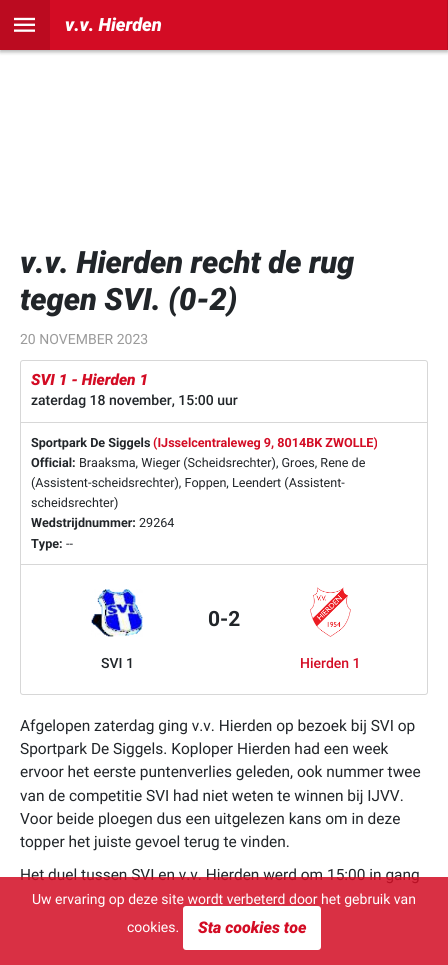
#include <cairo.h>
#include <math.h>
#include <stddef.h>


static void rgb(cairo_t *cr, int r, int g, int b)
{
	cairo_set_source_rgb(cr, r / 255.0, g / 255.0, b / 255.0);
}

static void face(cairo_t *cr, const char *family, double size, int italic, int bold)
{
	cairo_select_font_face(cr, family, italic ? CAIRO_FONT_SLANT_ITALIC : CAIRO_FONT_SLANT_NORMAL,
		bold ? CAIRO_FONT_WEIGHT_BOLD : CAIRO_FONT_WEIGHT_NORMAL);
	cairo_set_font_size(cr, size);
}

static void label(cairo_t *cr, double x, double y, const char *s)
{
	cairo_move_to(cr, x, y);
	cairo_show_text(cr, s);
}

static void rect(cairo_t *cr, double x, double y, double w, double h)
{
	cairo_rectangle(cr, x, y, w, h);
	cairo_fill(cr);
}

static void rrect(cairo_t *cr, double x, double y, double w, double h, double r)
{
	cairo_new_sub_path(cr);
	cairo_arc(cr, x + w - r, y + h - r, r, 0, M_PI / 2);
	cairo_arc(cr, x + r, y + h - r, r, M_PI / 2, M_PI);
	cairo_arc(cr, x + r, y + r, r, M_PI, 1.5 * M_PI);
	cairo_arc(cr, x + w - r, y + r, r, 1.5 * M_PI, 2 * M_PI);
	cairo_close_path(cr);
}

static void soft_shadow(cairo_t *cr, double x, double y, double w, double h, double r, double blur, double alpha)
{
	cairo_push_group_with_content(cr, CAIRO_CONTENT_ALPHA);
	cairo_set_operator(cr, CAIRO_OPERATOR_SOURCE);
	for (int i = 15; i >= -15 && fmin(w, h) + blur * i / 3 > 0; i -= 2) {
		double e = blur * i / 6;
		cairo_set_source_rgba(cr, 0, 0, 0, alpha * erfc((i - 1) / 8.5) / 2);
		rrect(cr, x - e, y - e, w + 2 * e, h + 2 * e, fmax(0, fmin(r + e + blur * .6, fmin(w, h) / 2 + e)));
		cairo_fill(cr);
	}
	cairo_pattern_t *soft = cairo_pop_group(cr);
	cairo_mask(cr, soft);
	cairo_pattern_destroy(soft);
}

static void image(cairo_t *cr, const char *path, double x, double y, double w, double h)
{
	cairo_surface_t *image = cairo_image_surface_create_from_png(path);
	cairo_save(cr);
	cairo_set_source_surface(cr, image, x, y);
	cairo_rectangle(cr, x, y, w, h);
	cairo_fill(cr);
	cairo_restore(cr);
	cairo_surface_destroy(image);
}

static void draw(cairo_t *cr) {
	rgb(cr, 255, 255, 255);
	cairo_paint(cr);
	rgb(cr, 0, 0, 0);
	soft_shadow(cr, 0, 2, 448, 50, 0, 2, 0.3);
	rgb(cr, 211, 12, 36);
	rect(cr, 50, 0, 397, 50);
	rgb(cr, 187, 11, 32);
	rect(cr, 0, 0, 50, 50);
	image(cr, "image0.png", 14, 17, 21, 15);
	face(cr, "Roboto Black", 18.25, 1, 0);
	rgb(cr, 255, 255, 255);
	label(cr, 65, 31, "v.v. Hierden");
	rgb(cr, 187, 11, 32);
	rect(cr, 447, 0, 1, 50);
	face(cr, "Roboto Black", 30.75, 1, 0);
	rgb(cr, 33, 37, 41);
	label(cr, 20, 273, "v.v. Hierden recht de rug");
	label(cr, 20, 310, "tegen SVI. (0-2)");
	face(cr, "Roboto", 14, 0, 0);
	rgb(cr, 154, 154, 154);
	label(cr, 20, 344, "20 NOVEMBER 2023");
	rrect(cr, 20.5, 360.5, 407, 334, 2.5);
	rgb(cr, 215, 215, 215);
	cairo_set_line_width(cr, 1);
	cairo_stroke(cr);
	rect(cr, 21, 422, 406, 1);
	face(cr, "Roboto Black", 15.5, 1, 0);
	rgb(cr, 211, 12, 36);
	label(cr, 31, 385, "SVI 1 - Hierden 1");
	face(cr, "Roboto Medium", 14, 0, 0);
	rgb(cr, 33, 37, 41);
	label(cr, 31, 405, "zaterdag 18 november, 15:00 uur");
	face(cr, "Roboto", 12.6, 0, 1);
	label(cr, 31, 447, "Sportpark De Siggels");
	rgb(cr, 211, 12, 36);
	label(cr, 153, 447, "(IJsselcentraleweg 9, 8014BK ZWOLLE)");
	rgb(cr, 33, 37, 41);
	label(cr, 31, 467, "Official:");
	face(cr, "Roboto", 12.6, 0, 0);
	label(cr, 79, 467, "Braaksma, Wieger (Scheidsrechter), Groes, Rene de");
	label(cr, 31, 487, "(Assistent-scheidsrechter), Foppen, Leendert (Assistent-");
	label(cr, 31, 507, "scheidsrechter)");
	face(cr, "Roboto", 12.6, 0, 1);
	label(cr, 31, 527, "Wedstrijdnummer:");
	face(cr, "Roboto", 12.6, 0, 0);
	label(cr, 139, 527, "29264");
	face(cr, "Roboto", 12.6, 0, 1);
	label(cr, 31, 548, "Type:");
	face(cr, "Roboto", 12.6, 0, 0);
	label(cr, 66, 548, "--");
	rgb(cr, 215, 215, 215);
	rect(cr, 21, 564, 406, 1);
	face(cr, "Roboto", 21, 0, 1);
	rgb(cr, 33, 37, 41);
	label(cr, 208, 626, "0-2");
	image(cr, "image1.png", 91, 589, 52, 48);
	face(cr, "Roboto Medium", 14, 0, 0);
	label(cr, 101, 668, "SVI 1");
	image(cr, "image2.png", 310, 587, 41, 50);
	rgb(cr, 211, 12, 36);
	label(cr, 300, 668, "Hierden 1");
	face(cr, "Roboto", 15.45, 0, 0);
	rgb(cr, 33, 37, 41);
	label(cr, 20, 731, "Afgelopen zaterdag ging v.v. Hierden op bezoek bij SVI op");
	label(cr, 20, 754, "Sportpark De Siggels. Koploper Hierden had een week");
	label(cr, 20, 777, "ervoor het eerste puntenverlies geleden, ook nummer twee");
	label(cr, 20, 801, "van de competitie SVI had niet weten te winnen bij IJVV.");
	label(cr, 20, 824, "Voor beide ploegen dus een uitgelezen kans om in deze");
	label(cr, 20, 847, "topper het juiste gevoel terug te vinden.");
	label(cr, 20, 880, "Het duel tussen SVI en v.v. Hierden werd om 15:00 in gang");
	cairo_set_source_rgba(cr, 0.827, 0.047, 0.141, 0.85);
	rect(cr, 0, 877, 448, 88);
	face(cr, "Roboto", 14, 0, 0);
	rgb(cr, 255, 255, 255);
	label(cr, 32, 904, "Uw ervaring op deze site wordt verbeterd door het gebruik van");
	label(cr, 127, 932, "cookies.");
	rrect(cr, 183, 906, 138, 44, 3);
	cairo_fill(cr);
	face(cr, "Roboto Black", 16, 1, 0);
	rgb(cr, 211, 12, 36);
	label(cr, 198, 933, "Sta cookies toe");
}

int main(void) {
	cairo_surface_t *surface = cairo_image_surface_create(CAIRO_FORMAT_RGB24, 448, 965);
	cairo_t *cr = cairo_create(surface);
	cairo_font_options_t *options = cairo_font_options_create();
	cairo_font_options_set_hint_metrics(options, CAIRO_HINT_METRICS_OFF);
	cairo_font_options_set_hint_style(options, CAIRO_HINT_STYLE_NONE);
	cairo_set_font_options(cr, options);
	cairo_set_miter_limit(cr, 4);
	draw(cr);
	cairo_surface_write_to_png(surface, "render.png");
	cairo_font_options_destroy(options);
	cairo_destroy(cr);
	cairo_surface_destroy(surface);
	return 0;
}
